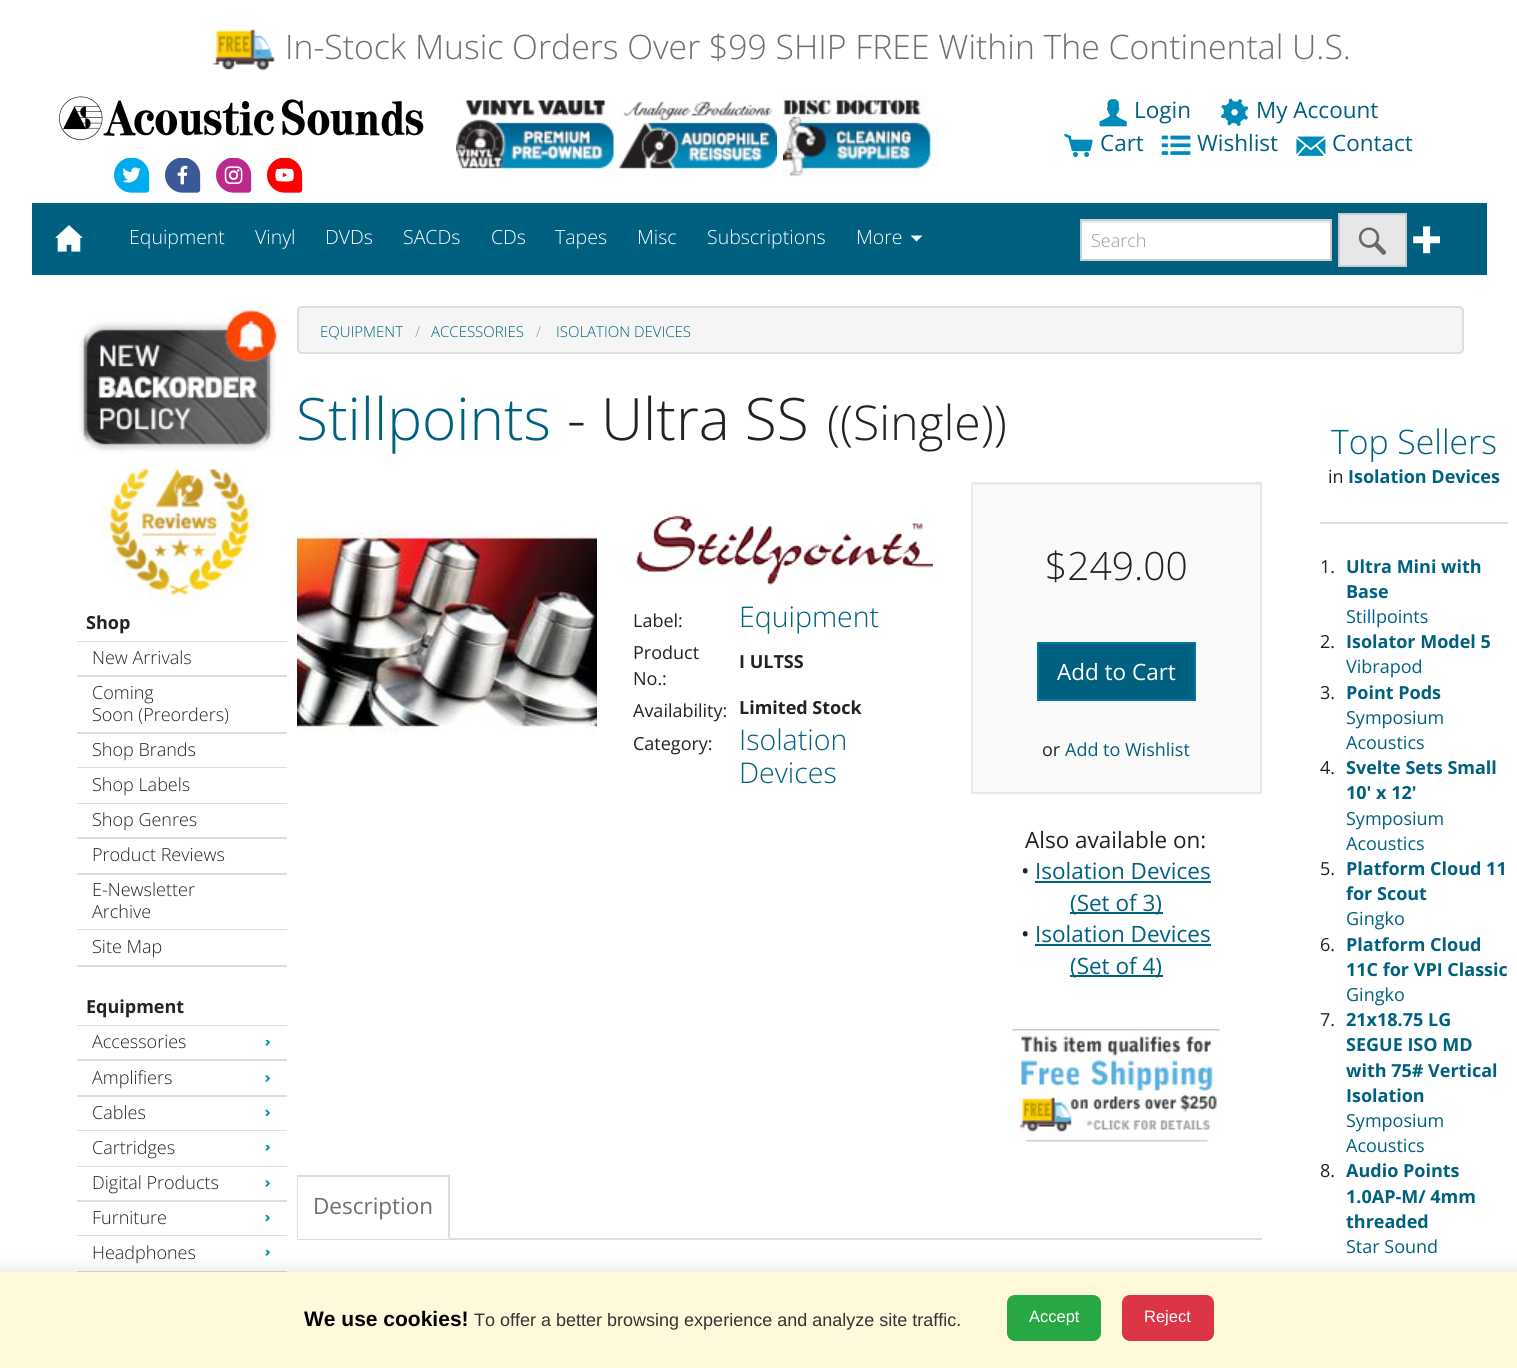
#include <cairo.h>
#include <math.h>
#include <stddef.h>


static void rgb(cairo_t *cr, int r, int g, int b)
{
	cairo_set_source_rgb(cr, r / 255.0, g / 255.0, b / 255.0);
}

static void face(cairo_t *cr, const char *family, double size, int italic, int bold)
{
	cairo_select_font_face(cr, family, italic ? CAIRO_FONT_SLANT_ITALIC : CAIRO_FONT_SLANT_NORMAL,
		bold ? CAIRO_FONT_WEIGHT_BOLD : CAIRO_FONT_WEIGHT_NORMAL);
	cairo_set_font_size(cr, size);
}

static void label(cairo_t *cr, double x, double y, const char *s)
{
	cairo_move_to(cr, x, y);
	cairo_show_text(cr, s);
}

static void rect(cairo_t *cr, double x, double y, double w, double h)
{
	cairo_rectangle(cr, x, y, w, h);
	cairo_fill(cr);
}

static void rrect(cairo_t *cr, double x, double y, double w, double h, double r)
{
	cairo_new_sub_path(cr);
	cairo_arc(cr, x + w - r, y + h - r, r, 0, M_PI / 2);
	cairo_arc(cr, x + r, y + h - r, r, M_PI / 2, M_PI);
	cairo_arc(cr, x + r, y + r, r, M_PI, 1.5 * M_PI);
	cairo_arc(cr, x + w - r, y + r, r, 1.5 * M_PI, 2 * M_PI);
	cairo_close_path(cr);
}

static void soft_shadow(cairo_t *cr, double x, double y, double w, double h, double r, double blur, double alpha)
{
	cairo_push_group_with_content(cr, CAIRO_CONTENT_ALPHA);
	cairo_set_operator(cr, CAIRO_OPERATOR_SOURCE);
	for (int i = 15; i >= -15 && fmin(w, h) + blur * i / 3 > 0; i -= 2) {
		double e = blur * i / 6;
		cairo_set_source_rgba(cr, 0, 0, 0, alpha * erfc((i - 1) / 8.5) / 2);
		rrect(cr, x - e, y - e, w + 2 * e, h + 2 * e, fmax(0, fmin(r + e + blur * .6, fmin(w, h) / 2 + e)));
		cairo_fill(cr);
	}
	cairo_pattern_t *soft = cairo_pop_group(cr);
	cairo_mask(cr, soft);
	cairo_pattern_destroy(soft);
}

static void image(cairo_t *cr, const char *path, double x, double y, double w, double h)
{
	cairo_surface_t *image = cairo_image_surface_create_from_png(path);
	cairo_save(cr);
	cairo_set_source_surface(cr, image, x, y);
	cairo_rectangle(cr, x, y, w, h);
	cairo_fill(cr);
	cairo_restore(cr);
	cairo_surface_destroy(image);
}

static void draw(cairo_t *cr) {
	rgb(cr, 255, 255, 255);
	cairo_paint(cr);
	image(cr, "image0.png", 212, 29, 63, 42);
	face(cr, "Open Sans Light", 33.75, 0, 0);
	rgb(cr, 111, 111, 111);
	label(cr, 285, 59, "In-Stock Music Orders Over $99 SHIP FREE Within The Continental U.S.");
	image(cr, "image1.png", 59, 96, 365, 44);
	image(cr, "image2.png", 114, 158, 36, 35);
	image(cr, "image3.png", 165, 158, 36, 35);
	image(cr, "image4.png", 216, 158, 36, 35);
	image(cr, "image5.png", 267, 158, 36, 35);
	image(cr, "image6.png", 456, 100, 158, 69);
	image(cr, "image7.png", 619, 101, 158, 68);
	image(cr, "image8.png", 783, 94, 156, 83);
	image(cr, "image9.png", 1099, 99, 28, 28);
	face(cr, "Open Sans", 22.5, 0, 0);
	rgb(cr, 0, 96, 128);
	label(cr, 1134, 118, "Login");
	image(cr, "image10.png", 1220, 98, 29, 29);
	label(cr, 1256, 118, "My Account");
	image(cr, "image11.png", 1064, 133, 29, 24);
	label(cr, 1100, 151, "Cart");
	image(cr, "image12.png", 1161, 135, 30, 20);
	label(cr, 1197, 151, "Wishlist");
	image(cr, "image13.png", 1296, 136, 30, 20);
	label(cr, 1332, 151, "Contact");
	rect(cr, 32, 203, 1455, 72);
	image(cr, "image14.png", 55, 225, 28, 27);
	face(cr, "Open Sans Light", 19.5, 0, 0);
	rgb(cr, 255, 255, 255);
	label(cr, 129, 244, "Equipment");
	label(cr, 255, 244, "Vinyl");
	label(cr, 325, 244, "DVDs");
	label(cr, 403, 244, "SACDs");
	label(cr, 491, 244, "CDs");
	label(cr, 555, 244, "Tapes");
	label(cr, 637, 244, "Misc");
	label(cr, 707, 244, "Subscriptions");
	label(cr, 856, 244, "More");
	cairo_new_path(cr);
	cairo_move_to(cr, 910.5, 235.5);
	cairo_line_to(cr, 922.5, 235.5);
	cairo_line_to(cr, 916.5, 241.5);
	cairo_close_path(cr);
	cairo_fill(cr);
	rect(cr, 1082, 223, 248, 36);
	rgb(cr, 236, 236, 236);
	rect(cr, 1082, 221, 249, 2);
	cairo_rectangle(cr, 1081, 220, 250, 40);
	rgb(cr, 204, 204, 204);
	cairo_stroke(cr);
	face(cr, "Open Sans Light", 18, 0, 0);
	rgb(cr, 153, 153, 153);
	label(cr, 1091, 247, "Search");
	rgb(cr, 231, 231, 231);
	cairo_rectangle(cr, 1339, 214, 67, 52);
	cairo_fill_preserve(cr);
	rgb(cr, 204, 204, 204);
	cairo_stroke(cr);
	image(cr, "image15.png", 1358, 227, 29, 28);
	image(cr, "image16.png", 1413, 226, 27, 28);
	image(cr, "image17.png", 79, 306, 202, 147);
	image(cr, "image18.png", 100, 468, 157, 132);
	rgb(cr, 221, 221, 221);
	rect(cr, 77, 641, 210, 1);
	face(cr, "Open Sans", 18, 0, 1);
	rgb(cr, 34, 34, 34);
	label(cr, 86, 629, "Shop");
	rgb(cr, 221, 221, 221);
	rect(cr, 77, 675, 210, 2);
	face(cr, "Open Sans Light", 18, 0, 0);
	rgb(cr, 34, 34, 34);
	label(cr, 92, 664, "New Arrivals");
	rgb(cr, 221, 221, 221);
	rect(cr, 77, 732, 210, 2);
	rgb(cr, 34, 34, 34);
	label(cr, 92, 699, "Coming");
	label(cr, 92, 721, "Soon (Preorders)");
	rgb(cr, 221, 221, 221);
	rect(cr, 77, 767, 210, 1);
	rgb(cr, 34, 34, 34);
	label(cr, 92, 756, "Shop Brands");
	rgb(cr, 221, 221, 221);
	rect(cr, 77, 803, 210, 1);
	rgb(cr, 34, 34, 34);
	label(cr, 92, 791, "Shop Labels");
	rgb(cr, 221, 221, 221);
	rect(cr, 77, 837, 210, 2);
	rgb(cr, 34, 34, 34);
	label(cr, 92, 826, "Shop Genres");
	rgb(cr, 221, 221, 221);
	rect(cr, 77, 873, 210, 2);
	rgb(cr, 34, 34, 34);
	label(cr, 92, 861, "Product Reviews");
	rgb(cr, 221, 221, 221);
	rect(cr, 77, 929, 210, 1);
	rgb(cr, 34, 34, 34);
	label(cr, 92, 896, "E-Newsletter");
	label(cr, 92, 918, "Archive");
	rgb(cr, 221, 221, 221);
	rect(cr, 77, 965, 210, 2);
	rgb(cr, 34, 34, 34);
	label(cr, 92, 953, "Site Map");
	rgb(cr, 221, 221, 221);
	rect(cr, 77, 1025, 210, 1);
	face(cr, "Open Sans", 18, 0, 1);
	rgb(cr, 34, 34, 34);
	label(cr, 86, 1013, "Equipment");
	rgb(cr, 221, 221, 221);
	rect(cr, 77, 1059, 210, 2);
	face(cr, "Open Sans Light", 18, 0, 0);
	rgb(cr, 34, 34, 34);
	label(cr, 92, 1048, "Accessories");
	image(cr, "image19.png", 265, 1040, 6, 6);
	rgb(cr, 221, 221, 221);
	rect(cr, 77, 1095, 210, 2);
	rgb(cr, 34, 34, 34);
	label(cr, 92, 1084, "Amplifiers");
	image(cr, "image20.png", 265, 1075, 6, 7);
	rgb(cr, 221, 221, 221);
	rect(cr, 77, 1130, 210, 1);
	rgb(cr, 34, 34, 34);
	label(cr, 92, 1119, "Cables");
	image(cr, "image21.png", 265, 1109, 5, 7);
	rgb(cr, 221, 221, 221);
	rect(cr, 77, 1166, 210, 1);
	rgb(cr, 34, 34, 34);
	label(cr, 92, 1154, "Cartridges");
	image(cr, "image19.png", 265, 1145, 6, 6);
	rgb(cr, 221, 221, 221);
	rect(cr, 77, 1200, 210, 2);
	rgb(cr, 34, 34, 34);
	label(cr, 92, 1189, "Digital Products");
	image(cr, "image20.png", 265, 1180, 6, 7);
	rgb(cr, 221, 221, 221);
	rect(cr, 77, 1235, 210, 1);
	rgb(cr, 34, 34, 34);
	label(cr, 92, 1224, "Furniture");
	image(cr, "image22.png", 265, 1215, 5, 7);
	rgb(cr, 221, 221, 221);
	rect(cr, 77, 1271, 210, 1);
	rgb(cr, 34, 34, 34);
	label(cr, 92, 1259, "Headphones");
	image(cr, "image19.png", 265, 1250, 6, 6);
	rgb(cr, 245, 245, 245);
	rrect(cr, 298, 307, 1165, 46, 4);
	cairo_fill_preserve(cr);
	rgb(cr, 221, 221, 221);
	cairo_stroke(cr);
	face(cr, "Open Sans Light", 15, 0, 0);
	rgb(cr, 0, 96, 128);
	label(cr, 320, 337, "EQUIPMENT");
	rgb(cr, 153, 153, 153);
	label(cr, 415, 337, "/");
	rgb(cr, 0, 96, 128);
	label(cr, 431, 337, "ACCESSORIES");
	rgb(cr, 153, 153, 153);
	label(cr, 536, 337, "/");
	rgb(cr, 0, 96, 128);
	label(cr, 556, 337, "ISOLATION DEVICES");
	face(cr, "Open Sans Light", 58.5, 0, 0);
	label(cr, 296, 440, "Stillpoints");
	rgb(cr, 34, 34, 34);
	label(cr, 567, 440, "- Ultra SS");
	face(cr, "Open Sans Light", 48, 0, 0);
	label(cr, 827, 440, "((Single))");
	image(cr, "image23.png", 297, 529, 300, 205);
	image(cr, "image24.png", 635, 515, 298, 70);
	face(cr, "Open Sans", 18, 0, 0);
	label(cr, 633, 627, "Label:");
	face(cr, "Open Sans Light", 28.5, 0, 0);
	rgb(cr, 0, 96, 128);
	label(cr, 739, 627, "Equipment");
	face(cr, "Open Sans", 18, 0, 0);
	rgb(cr, 34, 34, 34);
	label(cr, 633, 659, "Product");
	label(cr, 633, 685, "No.:");
	face(cr, "Open Sans", 18, 0, 1);
	label(cr, 739, 668, "I ULTSS");
	face(cr, "Open Sans", 18, 0, 0);
	label(cr, 633, 717, "Availability:");
	face(cr, "Open Sans", 18, 0, 1);
	label(cr, 739, 714, "Limited Stock");
	face(cr, "Open Sans", 18, 0, 0);
	label(cr, 633, 750, "Category:");
	face(cr, "Open Sans Light", 28.5, 0, 0);
	rgb(cr, 0, 96, 128);
	label(cr, 739, 750, "Isolation");
	label(cr, 739, 783, "Devices");
	rgb(cr, 250, 250, 250);
	rect(cr, 973, 485, 287, 307);
	rgb(cr, 238, 238, 238);
	rect(cr, 972, 484, 288, 1);
	cairo_rectangle(cr, 972, 483, 289, 310);
	rgb(cr, 232, 232, 232);
	cairo_stroke(cr);
	face(cr, "Open Sans Light", 39, 0, 0);
	rgb(cr, 34, 34, 34);
	label(cr, 1045, 580, "$249.00");
	rgb(cr, 0, 96, 128);
	cairo_rectangle(cr, 1038, 643, 157, 57);
	cairo_fill_preserve(cr);
	rgb(cr, 0, 121, 161);
	cairo_stroke(cr);
	face(cr, "Open Sans", 22.5, 0, 0);
	rgb(cr, 255, 255, 255);
	label(cr, 1057, 680, "Add to Cart");
	face(cr, "Open Sans", 18, 0, 0);
	rgb(cr, 34, 34, 34);
	label(cr, 1042, 756, "or");
	rgb(cr, 0, 96, 128);
	label(cr, 1065, 756, "Add to Wishlist");
	face(cr, "Open Sans", 22.5, 0, 0);
	rgb(cr, 34, 34, 34);
	label(cr, 1025, 848, "Also available on:");
	label(cr, 1021, 879, "•");
	rgb(cr, 0, 96, 128);
	label(cr, 1035, 879, "Isolation Devices");
	rect(cr, 1035, 881, 176, 2);
	rect(cr, 1070, 912, 93, 2);
	label(cr, 1070, 911, "(Set of 3)");
	rgb(cr, 34, 34, 34);
	label(cr, 1021, 942, "•");
	rgb(cr, 0, 96, 128);
	label(cr, 1035, 942, "Isolation Devices");
	rect(cr, 1035, 944, 176, 2);
	rect(cr, 1070, 975, 93, 2);
	label(cr, 1070, 974, "(Set of 4)");
	image(cr, "image25.png", 1012, 1029, 208, 113);
	rgb(cr, 221, 221, 221);
	rect(cr, 297, 1238, 965, 2);
	rgb(cr, 255, 255, 255);
	rect(cr, 297, 1238, 153, 1);
	rgb(cr, 221, 221, 221);
	rect(cr, 297, 1175, 153, 2);
	cairo_new_path(cr);
	cairo_move_to(cr, 450, 1174);
	cairo_line_to(cr, 450, 1239);
	cairo_line_to(cr, 448, 1238);
	cairo_line_to(cr, 448, 1176);
	cairo_close_path(cr);
	cairo_fill(cr);
	cairo_new_path(cr);
	cairo_move_to(cr, 297, 1239);
	cairo_line_to(cr, 297, 1174);
	cairo_line_to(cr, 298, 1176);
	cairo_line_to(cr, 298, 1238);
	cairo_close_path(cr);
	cairo_fill(cr);
	rgb(cr, 111, 111, 111);
	label(cr, 313, 1214, "Description");
	face(cr, "Open Sans Light", 33.75, 0, 0);
	rgb(cr, 0, 96, 128);
	label(cr, 1331, 454, "Top Sellers");
	face(cr, "Open Sans", 18, 0, 0);
	rgb(cr, 34, 34, 34);
	label(cr, 1328, 483, "in");
	face(cr, "Open Sans", 18, 0, 1);
	rgb(cr, 0, 96, 128);
	label(cr, 1348, 483, "Isolation Devices");
	rgb(cr, 221, 221, 221);
	rect(cr, 1320, 522, 188, 2);
	face(cr, "Open Sans", 18, 0, 0);
	rgb(cr, 34, 34, 34);
	label(cr, 1320, 573, "1.");
	face(cr, "Open Sans", 18, 0, 1);
	rgb(cr, 0, 96, 128);
	label(cr, 1346, 573, "Ultra Mini with");
	label(cr, 1346, 598, "Base");
	face(cr, "Open Sans", 18, 0, 0);
	label(cr, 1346, 623, "Stillpoints");
	rgb(cr, 34, 34, 34);
	label(cr, 1320, 648, "2.");
	face(cr, "Open Sans", 18, 0, 1);
	rgb(cr, 0, 96, 128);
	label(cr, 1346, 648, "Isolator Model 5");
	face(cr, "Open Sans", 18, 0, 0);
	label(cr, 1346, 673, "Vibrapod");
	rgb(cr, 34, 34, 34);
	label(cr, 1320, 699, "3.");
	face(cr, "Open Sans", 18, 0, 1);
	rgb(cr, 0, 96, 128);
	label(cr, 1346, 699, "Point Pods");
	face(cr, "Open Sans", 18, 0, 0);
	label(cr, 1346, 724, "Symposium");
	label(cr, 1346, 749, "Acoustics");
	rgb(cr, 34, 34, 34);
	label(cr, 1320, 774, "4.");
	face(cr, "Open Sans", 18, 0, 1);
	rgb(cr, 0, 96, 128);
	label(cr, 1346, 774, "Svelte Sets Small");
	label(cr, 1346, 799, "10' x 12'");
	face(cr, "Open Sans", 18, 0, 0);
	label(cr, 1346, 825, "Symposium");
	label(cr, 1346, 850, "Acoustics");
	rgb(cr, 34, 34, 34);
	label(cr, 1320, 875, "5.");
	face(cr, "Open Sans", 18, 0, 1);
	rgb(cr, 0, 96, 128);
	label(cr, 1346, 875, "Platform Cloud 11");
	label(cr, 1346, 900, "for Scout");
	face(cr, "Open Sans", 18, 0, 0);
	label(cr, 1346, 925, "Gingko");
	rgb(cr, 34, 34, 34);
	label(cr, 1320, 951, "6.");
	face(cr, "Open Sans", 18, 0, 1);
	rgb(cr, 0, 96, 128);
	label(cr, 1346, 951, "Platform Cloud");
	label(cr, 1346, 976, "11C for VPI Classic");
	face(cr, "Open Sans", 18, 0, 0);
	label(cr, 1346, 1001, "Gingko");
	rgb(cr, 34, 34, 34);
	label(cr, 1320, 1026, "7.");
	face(cr, "Open Sans", 18, 0, 1);
	rgb(cr, 0, 96, 128);
	label(cr, 1346, 1026, "21x18.75 LG");
	label(cr, 1346, 1051, "SEGUE ISO MD");
	label(cr, 1346, 1077, "with 75# Vertical");
	label(cr, 1346, 1102, "Isolation");
	face(cr, "Open Sans", 18, 0, 0);
	label(cr, 1346, 1127, "Symposium");
	label(cr, 1346, 1152, "Acoustics");
	rgb(cr, 34, 34, 34);
	label(cr, 1320, 1177, "8.");
	face(cr, "Open Sans", 18, 0, 1);
	rgb(cr, 0, 96, 128);
	label(cr, 1346, 1177, "Audio Points");
	label(cr, 1346, 1203, "1.0AP-M/ 4mm");
	label(cr, 1346, 1228, "threaded");
	face(cr, "Open Sans", 18, 0, 0);
	label(cr, 1346, 1253, "Star Sound");
	rgb(cr, 0, 0, 0);
	soft_shadow(cr, 0, 1269, 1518, 96, 0, 7.5, 0.1);
	rgb(cr, 255, 249, 219);
	rect(cr, 0, 1272, 1517, 96);
	face(cr, "Liberation Sans", 21, 0, 1);
	rgb(cr, 0, 0, 0);
	label(cr, 304, 1326, "We use cookies!");
	face(cr, "Liberation Sans", 18, 0, 0);
	rgb(cr, 51, 51, 51);
	label(cr, 474, 1326, "To offer a better browsing experience and analyze site traffic.");
	rgb(cr, 40, 167, 69);
	rrect(cr, 1007, 1295, 94, 46, 8);
	cairo_fill(cr);
	face(cr, "Liberation Sans", 16.5, 0, 0);
	rgb(cr, 255, 255, 255);
	label(cr, 1029, 1322, "Accept");
	rgb(cr, 220, 53, 69);
	rrect(cr, 1122, 1295, 92, 46, 8);
	cairo_fill(cr);
	rgb(cr, 255, 255, 255);
	label(cr, 1144, 1322, "Reject");
}

int main(void) {
	cairo_surface_t *surface = cairo_image_surface_create(CAIRO_FORMAT_RGB24, 1517, 1368);
	cairo_t *cr = cairo_create(surface);
	cairo_font_options_t *options = cairo_font_options_create();
	cairo_font_options_set_hint_metrics(options, CAIRO_HINT_METRICS_OFF);
	cairo_font_options_set_hint_style(options, CAIRO_HINT_STYLE_NONE);
	cairo_set_font_options(cr, options);
	cairo_set_miter_limit(cr, 4);
	draw(cr);
	cairo_surface_write_to_png(surface, "render.png");
	cairo_font_options_destroy(options);
	cairo_destroy(cr);
	cairo_surface_destroy(surface);
	return 0;
}
